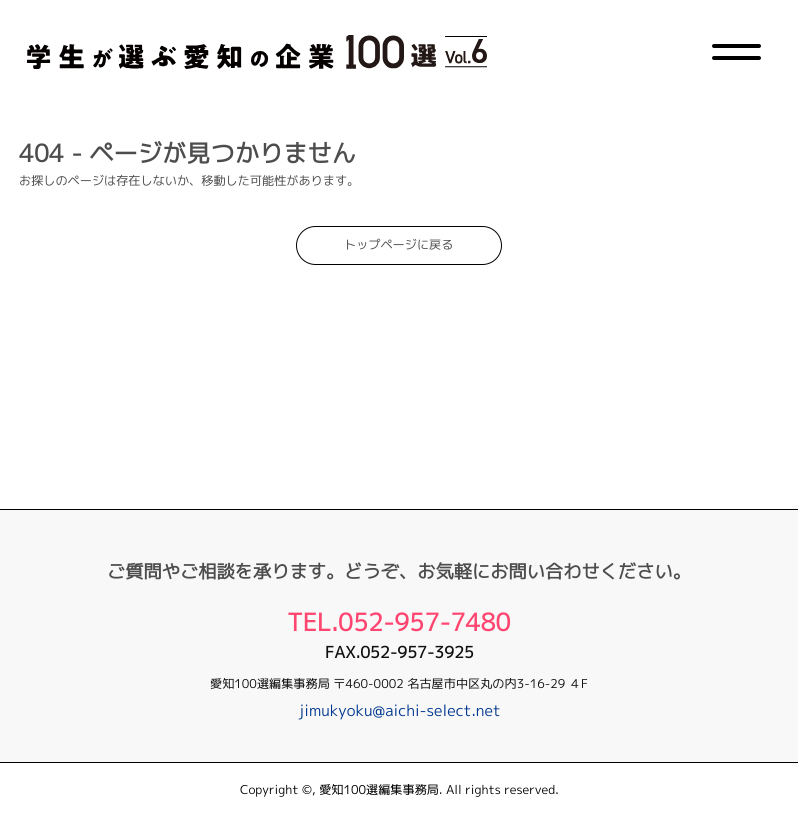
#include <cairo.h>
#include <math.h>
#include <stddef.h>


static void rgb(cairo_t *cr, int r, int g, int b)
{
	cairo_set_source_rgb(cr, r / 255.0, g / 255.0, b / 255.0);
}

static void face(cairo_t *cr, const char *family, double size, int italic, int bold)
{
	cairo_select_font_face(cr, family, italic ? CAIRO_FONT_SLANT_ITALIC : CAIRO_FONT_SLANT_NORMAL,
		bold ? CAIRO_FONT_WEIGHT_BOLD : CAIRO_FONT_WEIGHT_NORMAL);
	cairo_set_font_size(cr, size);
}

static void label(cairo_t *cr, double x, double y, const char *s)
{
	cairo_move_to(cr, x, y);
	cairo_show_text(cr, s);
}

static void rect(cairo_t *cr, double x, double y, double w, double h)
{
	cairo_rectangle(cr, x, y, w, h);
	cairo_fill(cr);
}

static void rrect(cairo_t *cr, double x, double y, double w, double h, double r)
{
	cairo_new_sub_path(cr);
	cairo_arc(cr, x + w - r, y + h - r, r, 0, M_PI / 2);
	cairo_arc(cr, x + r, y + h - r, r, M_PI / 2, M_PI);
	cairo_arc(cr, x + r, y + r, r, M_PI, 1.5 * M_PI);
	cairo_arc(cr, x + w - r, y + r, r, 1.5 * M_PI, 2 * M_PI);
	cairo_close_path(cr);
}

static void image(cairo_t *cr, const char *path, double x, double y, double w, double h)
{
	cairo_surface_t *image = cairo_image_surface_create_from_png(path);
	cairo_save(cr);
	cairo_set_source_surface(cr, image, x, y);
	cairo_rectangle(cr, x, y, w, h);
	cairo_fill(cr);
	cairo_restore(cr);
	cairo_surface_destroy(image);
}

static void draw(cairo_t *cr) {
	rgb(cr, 255, 255, 255);
	cairo_paint(cr);
	image(cr, "image0.png", 27, 35, 460, 34);
	rgb(cr, 0, 0, 0);
	rrect(cr, 712, 44, 49, 4, 2);
	cairo_fill(cr);
	rrect(cr, 712, 56, 49, 4, 2);
	cairo_fill(cr);
	face(cr, "M PLUS 1p", 24.25, 0, 1);
	rgb(cr, 77, 77, 77);
	label(cr, 19, 162, "404 - ページが見つかりません");
	face(cr, "M PLUS 1p", 12.15, 0, 0);
	label(cr, 19, 185, "お探しのページは存在しないか、移動した可能性があります。");
	rrect(cr, 296.5, 226.5, 205, 38, 19);
	rgb(cr, 0, 0, 0);
	cairo_set_line_width(cr, 1);
	cairo_stroke(cr);
	rgb(cr, 77, 77, 77);
	label(cr, 344, 249, "トップページに戻る");
	rgb(cr, 248, 248, 248);
	rect(cr, 0, 510, 798, 252);
	rgb(cr, 0, 0, 0);
	rect(cr, 0, 509, 798, 1);
	rect(cr, 0, 762, 798, 1);
	face(cr, "M PLUS 1p", 18.25, 0, 1);
	rgb(cr, 77, 77, 77);
	label(cr, 107, 578, "ご質問やご相談を承ります。どうぞ、お気軽にお問い合わせください。");
	face(cr, "M PLUS 1p", 24.25, 0, 1);
	rgb(cr, 255, 69, 112);
	label(cr, 287, 631, "TEL.052-957-7480");
	face(cr, "M PLUS 1p", 16, 0, 1);
	rgb(cr, 16, 16, 16);
	label(cr, 325, 658, "FAX.052-957-3925");
	face(cr, "M PLUS 1p", 12.15, 0, 0);
	label(cr, 210, 688, "愛知100選編集事務局 〒460-0002 名古屋市中区丸の内3-16-29 ４F");
	face(cr, "M PLUS 1p", 15.25, 0, 0);
	rgb(cr, 0, 55, 144);
	label(cr, 299, 716, "jimukyoku@aichi-select.net");
	face(cr, "M PLUS 1p", 12.15, 0, 0);
	rgb(cr, 0, 0, 0);
	label(cr, 240, 794, "Copyright ©, 愛知100選編集事務局. All rights reserved.");
}

int main(void) {
	cairo_surface_t *surface = cairo_image_surface_create(CAIRO_FORMAT_RGB24, 798, 824);
	cairo_t *cr = cairo_create(surface);
	cairo_font_options_t *options = cairo_font_options_create();
	cairo_font_options_set_hint_metrics(options, CAIRO_HINT_METRICS_OFF);
	cairo_font_options_set_hint_style(options, CAIRO_HINT_STYLE_NONE);
	cairo_set_font_options(cr, options);
	cairo_set_miter_limit(cr, 4);
	draw(cr);
	cairo_surface_write_to_png(surface, "render.png");
	cairo_font_options_destroy(options);
	cairo_destroy(cr);
	cairo_surface_destroy(surface);
	return 0;
}
